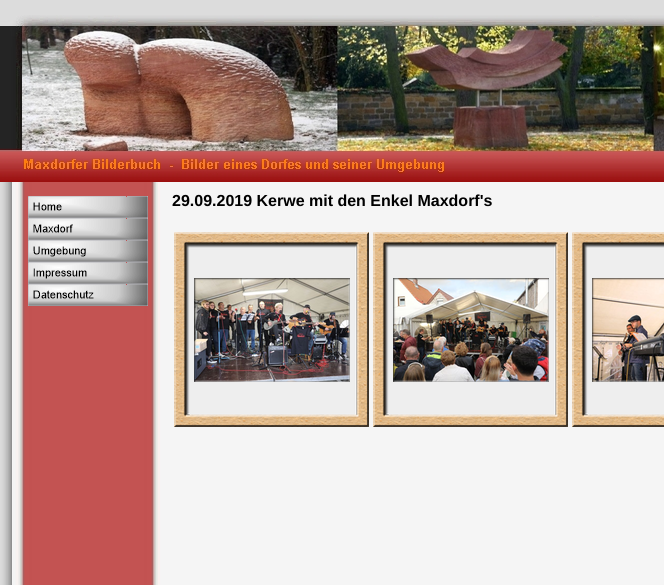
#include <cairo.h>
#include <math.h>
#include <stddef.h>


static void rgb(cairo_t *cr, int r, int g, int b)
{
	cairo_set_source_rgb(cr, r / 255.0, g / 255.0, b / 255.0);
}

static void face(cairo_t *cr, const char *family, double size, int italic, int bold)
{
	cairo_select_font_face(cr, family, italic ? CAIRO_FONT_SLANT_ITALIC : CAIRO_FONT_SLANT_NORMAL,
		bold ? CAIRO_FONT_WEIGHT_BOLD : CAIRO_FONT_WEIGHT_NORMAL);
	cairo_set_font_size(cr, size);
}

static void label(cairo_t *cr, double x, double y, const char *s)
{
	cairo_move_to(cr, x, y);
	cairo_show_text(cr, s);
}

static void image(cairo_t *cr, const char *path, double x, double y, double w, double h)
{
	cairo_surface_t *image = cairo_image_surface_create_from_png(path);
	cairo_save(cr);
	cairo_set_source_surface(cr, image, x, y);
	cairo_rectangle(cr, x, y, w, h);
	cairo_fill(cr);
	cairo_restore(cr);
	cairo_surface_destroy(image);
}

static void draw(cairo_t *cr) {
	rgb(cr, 255, 255, 255);
	cairo_paint(cr);
	image(cr, "image0.png", 0, 0, 664, 15);
	image(cr, "image1.png", 0, 15, 664, 167);
	image(cr, "image2.png", 0, 182, 664, 403);
	image(cr, "image3.png", 28, 196, 120, 22);
	image(cr, "image4.png", 28, 218, 120, 22);
	image(cr, "image5.png", 28, 240, 120, 22);
	image(cr, "image6.png", 28, 262, 120, 22);
	image(cr, "image7.png", 28, 284, 120, 22);
	face(cr, "Liberation Sans", 16, 0, 1);
	rgb(cr, 0, 0, 0);
	label(cr, 172, 206, "29.09.2019 Kerwe mit den Enkel Maxdorf's");
	image(cr, "image8.png", 174, 232, 195, 195);
	image(cr, "image9.png", 373, 232, 195, 195);
	image(cr, "image10.png", 572, 232, 92, 195);
}

int main(void) {
	cairo_surface_t *surface = cairo_image_surface_create(CAIRO_FORMAT_RGB24, 664, 585);
	cairo_t *cr = cairo_create(surface);
	cairo_font_options_t *options = cairo_font_options_create();
	cairo_font_options_set_hint_metrics(options, CAIRO_HINT_METRICS_OFF);
	cairo_font_options_set_hint_style(options, CAIRO_HINT_STYLE_NONE);
	cairo_set_font_options(cr, options);
	cairo_set_miter_limit(cr, 4);
	draw(cr);
	cairo_surface_write_to_png(surface, "render.png");
	cairo_font_options_destroy(options);
	cairo_destroy(cr);
	cairo_surface_destroy(surface);
	return 0;
}
